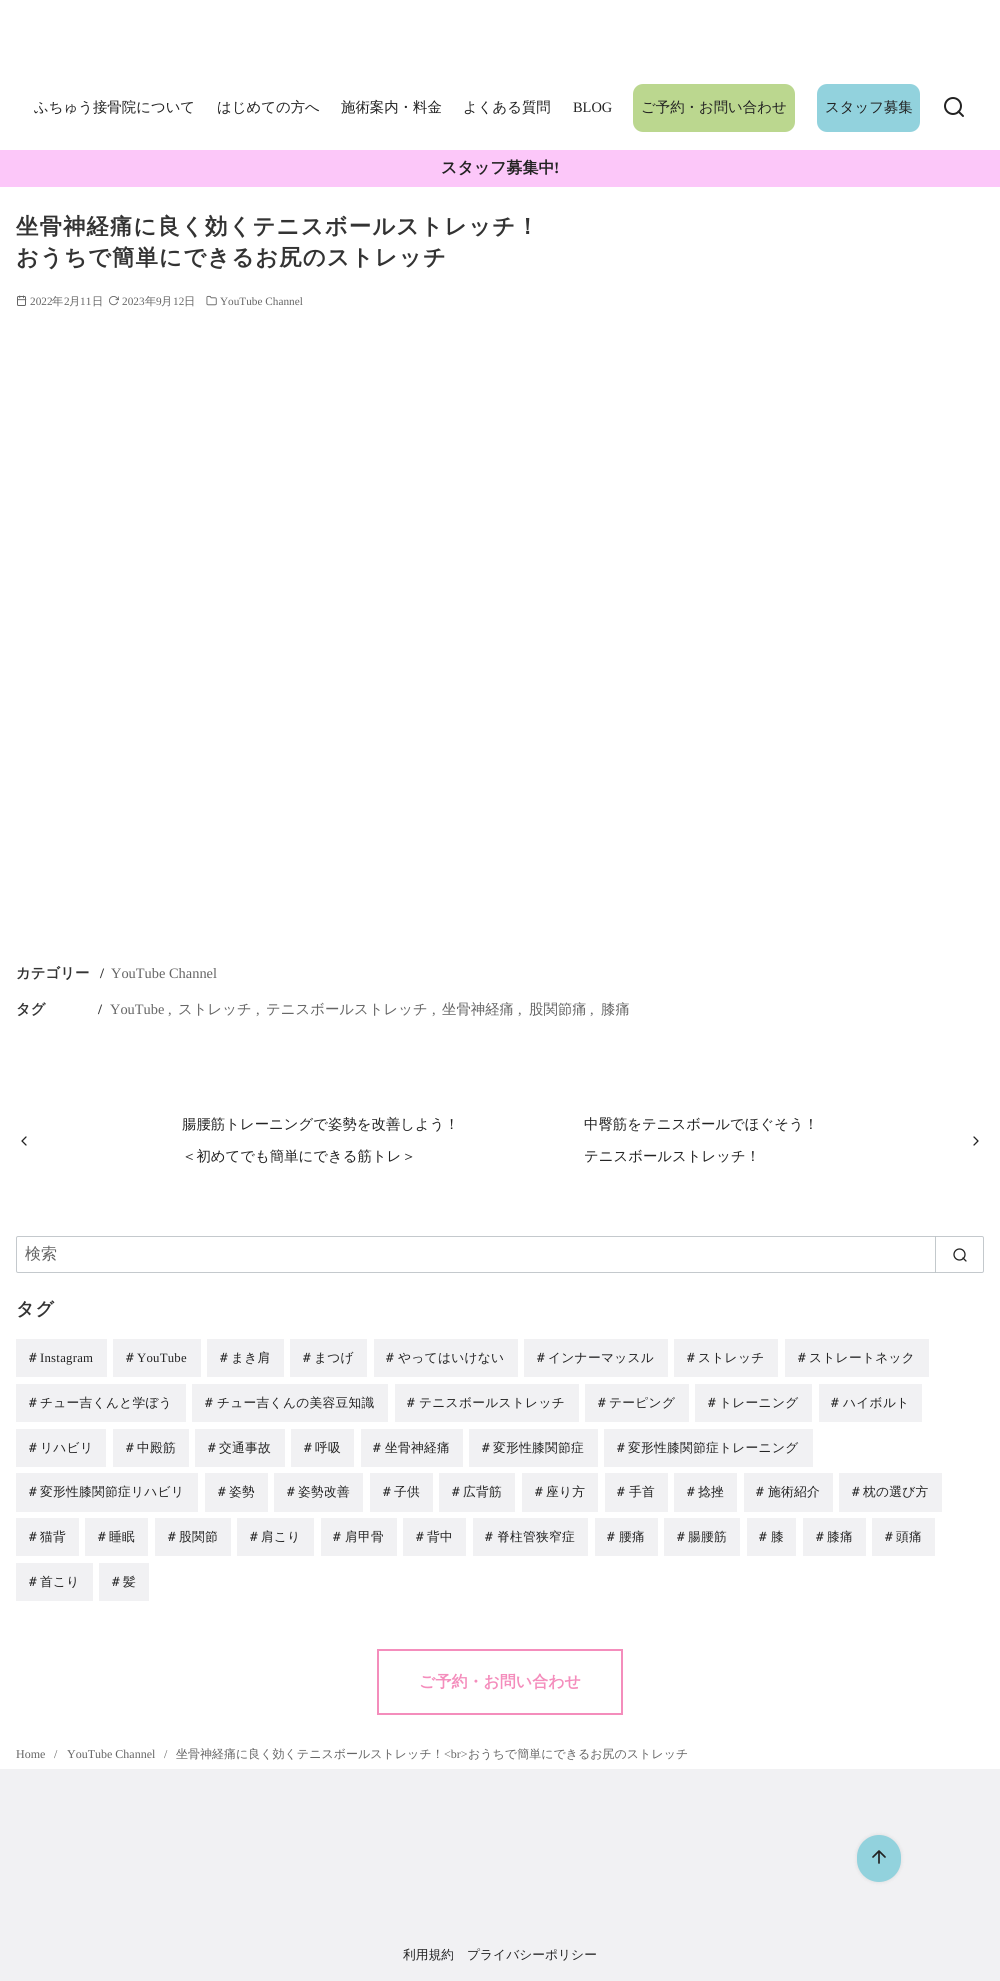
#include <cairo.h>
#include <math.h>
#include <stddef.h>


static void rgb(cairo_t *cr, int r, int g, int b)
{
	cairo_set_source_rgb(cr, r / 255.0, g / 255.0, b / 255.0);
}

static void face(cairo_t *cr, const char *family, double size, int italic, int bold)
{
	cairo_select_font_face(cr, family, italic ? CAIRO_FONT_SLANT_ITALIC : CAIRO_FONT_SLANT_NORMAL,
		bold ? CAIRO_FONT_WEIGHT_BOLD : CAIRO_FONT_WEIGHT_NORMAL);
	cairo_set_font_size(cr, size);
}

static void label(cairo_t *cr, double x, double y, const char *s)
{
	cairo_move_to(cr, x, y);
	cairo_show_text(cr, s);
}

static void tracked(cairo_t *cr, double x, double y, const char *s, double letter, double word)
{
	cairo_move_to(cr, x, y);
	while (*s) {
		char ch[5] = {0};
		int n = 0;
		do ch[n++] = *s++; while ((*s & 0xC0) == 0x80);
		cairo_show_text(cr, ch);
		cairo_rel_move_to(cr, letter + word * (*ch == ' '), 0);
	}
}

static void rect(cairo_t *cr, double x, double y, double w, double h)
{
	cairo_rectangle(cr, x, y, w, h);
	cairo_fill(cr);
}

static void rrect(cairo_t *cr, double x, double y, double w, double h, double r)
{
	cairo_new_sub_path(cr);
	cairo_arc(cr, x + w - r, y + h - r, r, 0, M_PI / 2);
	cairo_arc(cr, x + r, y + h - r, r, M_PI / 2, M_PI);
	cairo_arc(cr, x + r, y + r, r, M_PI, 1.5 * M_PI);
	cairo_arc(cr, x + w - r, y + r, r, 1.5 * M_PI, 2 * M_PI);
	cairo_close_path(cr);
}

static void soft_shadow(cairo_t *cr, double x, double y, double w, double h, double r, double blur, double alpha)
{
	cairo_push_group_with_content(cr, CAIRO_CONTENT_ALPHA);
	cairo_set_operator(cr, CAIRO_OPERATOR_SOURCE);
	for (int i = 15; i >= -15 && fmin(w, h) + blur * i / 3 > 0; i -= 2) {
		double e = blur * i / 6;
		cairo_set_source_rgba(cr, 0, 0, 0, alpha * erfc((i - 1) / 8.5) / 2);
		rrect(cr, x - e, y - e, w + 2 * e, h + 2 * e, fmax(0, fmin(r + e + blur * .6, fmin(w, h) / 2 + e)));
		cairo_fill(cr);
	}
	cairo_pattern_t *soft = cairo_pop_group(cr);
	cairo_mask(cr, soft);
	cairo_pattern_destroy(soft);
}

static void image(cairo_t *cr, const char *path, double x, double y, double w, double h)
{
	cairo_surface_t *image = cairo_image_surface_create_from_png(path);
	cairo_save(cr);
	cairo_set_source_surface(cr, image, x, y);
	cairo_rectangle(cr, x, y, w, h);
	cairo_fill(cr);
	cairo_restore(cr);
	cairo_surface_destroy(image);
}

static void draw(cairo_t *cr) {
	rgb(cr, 255, 255, 255);
	cairo_paint(cr);
	face(cr, "WenQuanYi Zen Hei Medium", 14.4, 0, 0);
	rgb(cr, 34, 34, 34);
	label(cr, 34, 112, "ふちゅう接骨院について");
	label(cr, 217, 112, "はじめての方へ");
	label(cr, 341, 112, "施術案内・料金");
	label(cr, 463, 112, "よくある質問");
	face(cr, "Liberation Serif", 14.4, 0, 0);
	label(cr, 573, 112, "BLOG");
	rgb(cr, 187, 215, 143);
	rrect(cr, 633, 84, 162, 48, 10);
	cairo_fill(cr);
	face(cr, "WenQuanYi Zen Hei Medium", 14.4, 0, 0);
	rgb(cr, 34, 34, 34);
	label(cr, 641, 112, "ご予約・お問い合わせ");
	rgb(cr, 146, 210, 221);
	rrect(cr, 817, 84, 103, 48, 10);
	cairo_fill(cr);
	rgb(cr, 34, 34, 34);
	label(cr, 825, 112, "スタッフ募集");
	cairo_new_path(cr);
	cairo_arc(cr, 953, 106, 8, 0, 2 * M_PI);
	cairo_stroke(cr);
	cairo_new_path(cr);
	cairo_move_to(cr, 963, 116);
	cairo_line_to(cr, 958.5, 111.5);
	cairo_set_line_cap(cr, CAIRO_LINE_CAP_ROUND);
	cairo_set_line_join(cr, CAIRO_LINE_JOIN_ROUND);
	cairo_stroke(cr);
	rgb(cr, 252, 199, 249);
	rect(cr, 0, 150, 1000, 37);
	face(cr, "WenQuanYi Zen Hei", 16, 0, 1);
	rgb(cr, 34, 34, 34);
	label(cr, 441, 173, "スタッフ募集中");
	face(cr, "Liberation Serif", 16, 0, 1);
	label(cr, 554, 173, "!");
	face(cr, "WenQuanYi Zen Hei", 22.4, 0, 1);
	rgb(cr, 51, 51, 51);
	tracked(cr, 16, 234, "坐骨神経痛に良く効くテニスボールストレッチ！", 1.1, 0);
	tracked(cr, 16, 265, "おうちで簡単にできるお尻のストレッチ", 1.1, 0);
	image(cr, "image0.png", 17, 295, 10, 11);
	face(cr, "Liberation Serif", 11.25, 0, 0);
	rgb(cr, 101, 101, 101);
	label(cr, 30, 305, "2022");
	face(cr, "WenQuanYi Zen Hei Medium", 11.25, 0, 0);
	label(cr, 52, 305, "年");
	face(cr, "Liberation Serif", 11.25, 0, 0);
	label(cr, 64, 305, "2");
	face(cr, "WenQuanYi Zen Hei Medium", 11.25, 0, 0);
	label(cr, 69, 305, "月");
	face(cr, "Liberation Serif", 11.25, 0, 0);
	label(cr, 80, 305, "11");
	face(cr, "WenQuanYi Zen Hei Medium", 11.25, 0, 0);
	label(cr, 92, 305, "日");
	image(cr, "image1.png", 109, 296, 10, 10);
	face(cr, "Liberation Serif", 11.25, 0, 0);
	label(cr, 122, 305, "2023");
	face(cr, "WenQuanYi Zen Hei Medium", 11.25, 0, 0);
	label(cr, 145, 305, "年");
	face(cr, "Liberation Serif", 11.25, 0, 0);
	label(cr, 156, 305, "9");
	face(cr, "WenQuanYi Zen Hei Medium", 11.25, 0, 0);
	label(cr, 161, 305, "月");
	face(cr, "Liberation Serif", 11.25, 0, 0);
	label(cr, 173, 305, "12");
	face(cr, "WenQuanYi Zen Hei Medium", 11.25, 0, 0);
	label(cr, 184, 305, "日");
	image(cr, "image2.png", 206, 295, 11, 11);
	face(cr, "Liberation Serif", 11.25, 0, 0);
	label(cr, 220, 305, "YouTube Channel");
	face(cr, "WenQuanYi Zen Hei", 14.4, 0, 1);
	rgb(cr, 51, 51, 51);
	label(cr, 16, 978, "カテゴリー");
	face(cr, "Liberation Serif", 14.4, 0, 1);
	label(cr, 100, 978, "/");
	face(cr, "Liberation Serif", 14.4, 0, 0);
	rgb(cr, 101, 101, 101);
	label(cr, 111, 978, "YouTube Channel");
	face(cr, "WenQuanYi Zen Hei", 14.4, 0, 1);
	rgb(cr, 51, 51, 51);
	label(cr, 16, 1014, "タグ");
	face(cr, "Liberation Serif", 14.4, 0, 1);
	label(cr, 98, 1014, "/");
	face(cr, "Liberation Serif", 14.4, 0, 0);
	rgb(cr, 101, 101, 101);
	label(cr, 110, 1014, "YouTube ,");
	face(cr, "WenQuanYi Zen Hei Medium", 14.4, 0, 0);
	label(cr, 178, 1014, "ストレッチ");
	face(cr, "Liberation Serif", 14.4, 0, 0);
	label(cr, 256, 1014, ",");
	face(cr, "WenQuanYi Zen Hei Medium", 14.4, 0, 0);
	label(cr, 266, 1014, "テニスボールストレッチ");
	face(cr, "Liberation Serif", 14.4, 0, 0);
	label(cr, 432, 1014, ",");
	face(cr, "WenQuanYi Zen Hei Medium", 14.4, 0, 0);
	label(cr, 442, 1014, "坐骨神経痛");
	face(cr, "Liberation Serif", 14.4, 0, 0);
	label(cr, 518, 1014, ",");
	face(cr, "WenQuanYi Zen Hei Medium", 14.4, 0, 0);
	label(cr, 529, 1014, "股関節痛");
	face(cr, "Liberation Serif", 14.4, 0, 0);
	label(cr, 590, 1014, ",");
	face(cr, "WenQuanYi Zen Hei Medium", 14.4, 0, 0);
	label(cr, 601, 1014, "膝痛");
	cairo_new_path(cr);
	cairo_move_to(cr, 26, 1145);
	cairo_line_to(cr, 22, 1141);
	cairo_line_to(cr, 26, 1137);
	rgb(cr, 34, 34, 34);
	cairo_set_line_width(cr, 1.3);
	cairo_stroke(cr);
	label(cr, 182, 1129, "腸腰筋トレーニングで姿勢を改善しよう！");
	label(cr, 182, 1161, "＜初めてでも簡単にできる筋トレ＞");
	label(cr, 584, 1129, "中臀筋をテニスボールでほぐそう！");
	label(cr, 584, 1161, "テニスボールストレッチ！");
	cairo_new_path(cr);
	cairo_move_to(cr, 974, 1145);
	cairo_line_to(cr, 978, 1141);
	cairo_line_to(cr, 974, 1137);
	cairo_stroke(cr);
	rrect(cr, 16.5, 1236.5, 967, 36, 1.5);
	rgb(cr, 196, 201, 205);
	cairo_set_line_width(cr, 1);
	cairo_set_line_cap(cr, CAIRO_LINE_CAP_BUTT);
	cairo_set_line_join(cr, CAIRO_LINE_JOIN_MITER);
	cairo_stroke(cr);
	face(cr, "WenQuanYi Zen Hei Medium", 16, 0, 0);
	rgb(cr, 101, 101, 101);
	label(cr, 25, 1259, "検索");
	cairo_set_source_rgba(cr, 0.741, 0.765, 0.78, 0.9);
	rect(cr, 935, 1236, 1, 37);
	cairo_new_path(cr);
	cairo_arc(cr, 959.5, 1254.5, 5.5, 0, 2 * M_PI);
	rgb(cr, 34, 34, 34);
	cairo_set_line_width(cr, 1.3);
	cairo_stroke(cr);
	cairo_new_path(cr);
	cairo_move_to(cr, 966, 1261);
	cairo_line_to(cr, 963, 1258);
	cairo_set_line_cap(cr, CAIRO_LINE_CAP_ROUND);
	cairo_set_line_join(cr, CAIRO_LINE_JOIN_ROUND);
	cairo_stroke(cr);
	face(cr, "WenQuanYi Zen Hei", 18, 0, 1);
	rgb(cr, 51, 51, 51);
	tracked(cr, 16, 1315, "タグ", 1, 0);
	rgb(cr, 241, 241, 243);
	rect(cr, 16, 1339, 91, 38);
	face(cr, "DejaVu Sans Mono", 12.75, 0, 0);
	rgb(cr, 34, 34, 34);
	tracked(cr, 29, 1362, "#", 0.25, 0);
	face(cr, "Liberation Serif", 12.75, 0, 0);
	tracked(cr, 40, 1362, "Instagram", 0.25, 0);
	rgb(cr, 241, 241, 243);
	rect(cr, 113, 1339, 88, 38);
	face(cr, "DejaVu Sans Mono", 12.75, 0, 0);
	rgb(cr, 34, 34, 34);
	tracked(cr, 126, 1362, "#", 0.25, 0);
	face(cr, "Liberation Serif", 12.75, 0, 0);
	tracked(cr, 137, 1362, "YouTube", 0.25, 0);
	rgb(cr, 241, 241, 243);
	rect(cr, 207, 1339, 77, 38);
	face(cr, "DejaVu Sans Mono", 12.75, 0, 0);
	rgb(cr, 34, 34, 34);
	tracked(cr, 220, 1362, "#", 0.25, 0);
	face(cr, "WenQuanYi Zen Hei Medium", 12.75, 0, 0);
	tracked(cr, 231, 1362, "まき肩", 0.25, 0);
	rgb(cr, 241, 241, 243);
	rect(cr, 290, 1339, 77, 38);
	face(cr, "DejaVu Sans Mono", 12.75, 0, 0);
	rgb(cr, 34, 34, 34);
	tracked(cr, 303, 1362, "#", 0.25, 0);
	face(cr, "WenQuanYi Zen Hei Medium", 12.75, 0, 0);
	tracked(cr, 314, 1362, "まつげ", 0.25, 0);
	rgb(cr, 241, 241, 243);
	rect(cr, 374, 1339, 144, 38);
	face(cr, "DejaVu Sans Mono", 12.75, 0, 0);
	rgb(cr, 34, 34, 34);
	tracked(cr, 386, 1362, "#", 0.25, 0);
	face(cr, "WenQuanYi Zen Hei Medium", 12.75, 0, 0);
	tracked(cr, 398, 1362, "やってはいけない", 0.25, 0);
	rgb(cr, 241, 241, 243);
	rect(cr, 524, 1339, 144, 38);
	face(cr, "DejaVu Sans Mono", 12.75, 0, 0);
	rgb(cr, 34, 34, 34);
	tracked(cr, 537, 1362, "#", 0.25, 0);
	face(cr, "WenQuanYi Zen Hei Medium", 12.75, 0, 0);
	tracked(cr, 548, 1362, "インナーマッスル", 0.25, 0);
	rgb(cr, 241, 241, 243);
	rect(cr, 674, 1339, 104, 38);
	face(cr, "DejaVu Sans Mono", 12.75, 0, 0);
	rgb(cr, 34, 34, 34);
	tracked(cr, 687, 1362, "#", 0.25, 0);
	face(cr, "WenQuanYi Zen Hei Medium", 12.75, 0, 0);
	tracked(cr, 698, 1362, "ストレッチ", 0.25, 0);
	rgb(cr, 241, 241, 243);
	rect(cr, 785, 1339, 144, 38);
	face(cr, "DejaVu Sans Mono", 12.75, 0, 0);
	rgb(cr, 34, 34, 34);
	tracked(cr, 798, 1362, "#", 0.25, 0);
	face(cr, "WenQuanYi Zen Hei Medium", 12.75, 0, 0);
	tracked(cr, 809, 1362, "ストレートネック", 0.25, 0);
	rgb(cr, 241, 241, 243);
	rect(cr, 16, 1384, 170, 38);
	face(cr, "DejaVu Sans Mono", 12.75, 0, 0);
	rgb(cr, 34, 34, 34);
	tracked(cr, 29, 1407, "#", 0.25, 0);
	face(cr, "WenQuanYi Zen Hei Medium", 12.75, 0, 0);
	tracked(cr, 40, 1407, "チュー吉くんと学ぼう", 0.25, 0);
	rgb(cr, 241, 241, 243);
	rect(cr, 192, 1384, 196, 38);
	face(cr, "DejaVu Sans Mono", 12.75, 0, 0);
	rgb(cr, 34, 34, 34);
	tracked(cr, 205, 1407, "#", 0.25, 0);
	face(cr, "WenQuanYi Zen Hei Medium", 12.75, 0, 0);
	tracked(cr, 217, 1407, "チュー吉くんの美容豆知識", 0.25, 0);
	rgb(cr, 241, 241, 243);
	rect(cr, 395, 1384, 184, 38);
	face(cr, "DejaVu Sans Mono", 12.75, 0, 0);
	rgb(cr, 34, 34, 34);
	tracked(cr, 407, 1407, "#", 0.25, 0);
	face(cr, "WenQuanYi Zen Hei Medium", 12.75, 0, 0);
	tracked(cr, 419, 1407, "テニスボールストレッチ", 0.25, 0);
	rgb(cr, 241, 241, 243);
	rect(cr, 585, 1384, 104, 38);
	face(cr, "DejaVu Sans Mono", 12.75, 0, 0);
	rgb(cr, 34, 34, 34);
	tracked(cr, 598, 1407, "#", 0.25, 0);
	face(cr, "WenQuanYi Zen Hei Medium", 12.75, 0, 0);
	tracked(cr, 609, 1407, "テーピング", 0.25, 0);
	rgb(cr, 241, 241, 243);
	rect(cr, 695, 1384, 117, 38);
	face(cr, "DejaVu Sans Mono", 12.75, 0, 0);
	rgb(cr, 34, 34, 34);
	tracked(cr, 708, 1407, "#", 0.25, 0);
	face(cr, "WenQuanYi Zen Hei Medium", 12.75, 0, 0);
	tracked(cr, 719, 1407, "トレーニング", 0.25, 0);
	rgb(cr, 241, 241, 243);
	rect(cr, 819, 1384, 103, 38);
	face(cr, "DejaVu Sans Mono", 12.75, 0, 0);
	rgb(cr, 34, 34, 34);
	tracked(cr, 831, 1407, "#", 0.25, 0);
	face(cr, "WenQuanYi Zen Hei Medium", 12.75, 0, 0);
	tracked(cr, 843, 1407, "ハイボルト", 0.25, 0);
	rgb(cr, 241, 241, 243);
	rect(cr, 16, 1429, 90, 38);
	face(cr, "DejaVu Sans Mono", 12.75, 0, 0);
	rgb(cr, 34, 34, 34);
	tracked(cr, 29, 1452, "#", 0.25, 0);
	face(cr, "WenQuanYi Zen Hei Medium", 12.75, 0, 0);
	tracked(cr, 40, 1452, "リハビリ", 0.25, 0);
	rgb(cr, 241, 241, 243);
	rect(cr, 113, 1429, 76, 38);
	face(cr, "DejaVu Sans Mono", 12.75, 0, 0);
	rgb(cr, 34, 34, 34);
	tracked(cr, 126, 1452, "#", 0.25, 0);
	face(cr, "WenQuanYi Zen Hei Medium", 12.75, 0, 0);
	tracked(cr, 137, 1452, "中殿筋", 0.25, 0);
	rgb(cr, 241, 241, 243);
	rect(cr, 195, 1429, 90, 38);
	face(cr, "DejaVu Sans Mono", 12.75, 0, 0);
	rgb(cr, 34, 34, 34);
	tracked(cr, 208, 1452, "#", 0.25, 0);
	face(cr, "WenQuanYi Zen Hei Medium", 12.75, 0, 0);
	tracked(cr, 219, 1452, "交通事故", 0.25, 0);
	rgb(cr, 241, 241, 243);
	rect(cr, 291, 1429, 63, 38);
	face(cr, "DejaVu Sans Mono", 12.75, 0, 0);
	rgb(cr, 34, 34, 34);
	tracked(cr, 304, 1452, "#", 0.25, 0);
	face(cr, "WenQuanYi Zen Hei Medium", 12.75, 0, 0);
	tracked(cr, 315, 1452, "呼吸", 0.25, 0);
	rgb(cr, 241, 241, 243);
	rect(cr, 361, 1429, 102, 38);
	face(cr, "DejaVu Sans Mono", 12.75, 0, 0);
	rgb(cr, 34, 34, 34);
	tracked(cr, 373, 1452, "#", 0.25, 0);
	face(cr, "WenQuanYi Zen Hei Medium", 12.75, 0, 0);
	tracked(cr, 385, 1452, "坐骨神経痛", 0.25, 0);
	rgb(cr, 241, 241, 243);
	rect(cr, 469, 1429, 129, 38);
	face(cr, "DejaVu Sans Mono", 12.75, 0, 0);
	rgb(cr, 34, 34, 34);
	tracked(cr, 482, 1452, "#", 0.25, 0);
	face(cr, "WenQuanYi Zen Hei Medium", 12.75, 0, 0);
	tracked(cr, 493, 1452, "変形性膝関節症", 0.25, 0);
	rgb(cr, 241, 241, 243);
	rect(cr, 604, 1429, 209, 38);
	face(cr, "DejaVu Sans Mono", 12.75, 0, 0);
	rgb(cr, 34, 34, 34);
	tracked(cr, 617, 1452, "#", 0.25, 0);
	face(cr, "WenQuanYi Zen Hei Medium", 12.75, 0, 0);
	tracked(cr, 628, 1452, "変形性膝関節症トレーニング", 0.25, 0);
	rgb(cr, 241, 241, 243);
	rect(cr, 16, 1473, 182, 39);
	face(cr, "DejaVu Sans Mono", 12.75, 0, 0);
	rgb(cr, 34, 34, 34);
	tracked(cr, 29, 1496, "#", 0.25, 0);
	face(cr, "WenQuanYi Zen Hei Medium", 12.75, 0, 0);
	tracked(cr, 40, 1496, "変形性膝関節症リハビリ", 0.25, 0);
	rgb(cr, 241, 241, 243);
	rect(cr, 205, 1473, 63, 39);
	face(cr, "DejaVu Sans Mono", 12.75, 0, 0);
	rgb(cr, 34, 34, 34);
	tracked(cr, 218, 1496, "#", 0.25, 0);
	face(cr, "WenQuanYi Zen Hei Medium", 12.75, 0, 0);
	tracked(cr, 229, 1496, "姿勢", 0.25, 0);
	rgb(cr, 241, 241, 243);
	rect(cr, 274, 1473, 89, 39);
	face(cr, "DejaVu Sans Mono", 12.75, 0, 0);
	rgb(cr, 34, 34, 34);
	tracked(cr, 287, 1496, "#", 0.25, 0);
	face(cr, "WenQuanYi Zen Hei Medium", 12.75, 0, 0);
	tracked(cr, 298, 1496, "姿勢改善", 0.25, 0);
	rgb(cr, 241, 241, 243);
	rect(cr, 370, 1473, 63, 39);
	face(cr, "DejaVu Sans Mono", 12.75, 0, 0);
	rgb(cr, 34, 34, 34);
	tracked(cr, 383, 1496, "#", 0.25, 0);
	face(cr, "WenQuanYi Zen Hei Medium", 12.75, 0, 0);
	tracked(cr, 394, 1496, "子供", 0.25, 0);
	rgb(cr, 241, 241, 243);
	rect(cr, 439, 1473, 76, 39);
	face(cr, "DejaVu Sans Mono", 12.75, 0, 0);
	rgb(cr, 34, 34, 34);
	tracked(cr, 452, 1496, "#", 0.25, 0);
	face(cr, "WenQuanYi Zen Hei Medium", 12.75, 0, 0);
	tracked(cr, 463, 1496, "広背筋", 0.25, 0);
	rgb(cr, 241, 241, 243);
	rect(cr, 522, 1473, 76, 39);
	face(cr, "DejaVu Sans Mono", 12.75, 0, 0);
	rgb(cr, 34, 34, 34);
	tracked(cr, 535, 1496, "#", 0.25, 0);
	face(cr, "WenQuanYi Zen Hei Medium", 12.75, 0, 0);
	tracked(cr, 546, 1496, "座り方", 0.25, 0);
	rgb(cr, 241, 241, 243);
	rect(cr, 605, 1473, 63, 39);
	face(cr, "DejaVu Sans Mono", 12.75, 0, 0);
	rgb(cr, 34, 34, 34);
	tracked(cr, 617, 1496, "#", 0.25, 0);
	face(cr, "WenQuanYi Zen Hei Medium", 12.75, 0, 0);
	tracked(cr, 629, 1496, "手首", 0.25, 0);
	rgb(cr, 241, 241, 243);
	rect(cr, 674, 1473, 63, 39);
	face(cr, "DejaVu Sans Mono", 12.75, 0, 0);
	rgb(cr, 34, 34, 34);
	tracked(cr, 687, 1496, "#", 0.25, 0);
	face(cr, "WenQuanYi Zen Hei Medium", 12.75, 0, 0);
	tracked(cr, 698, 1496, "捻挫", 0.25, 0);
	rgb(cr, 241, 241, 243);
	rect(cr, 744, 1473, 89, 39);
	face(cr, "DejaVu Sans Mono", 12.75, 0, 0);
	rgb(cr, 34, 34, 34);
	tracked(cr, 756, 1496, "#", 0.25, 0);
	face(cr, "WenQuanYi Zen Hei Medium", 12.75, 0, 0);
	tracked(cr, 768, 1496, "施術紹介", 0.25, 0);
	rgb(cr, 241, 241, 243);
	rect(cr, 839, 1473, 103, 39);
	face(cr, "DejaVu Sans Mono", 12.75, 0, 0);
	rgb(cr, 34, 34, 34);
	tracked(cr, 852, 1496, "#", 0.25, 0);
	face(cr, "WenQuanYi Zen Hei Medium", 12.75, 0, 0);
	tracked(cr, 863, 1496, "枕の選び方", 0.25, 0);
	rgb(cr, 241, 241, 243);
	rect(cr, 16, 1518, 63, 38);
	face(cr, "DejaVu Sans Mono", 12.75, 0, 0);
	rgb(cr, 34, 34, 34);
	tracked(cr, 29, 1541, "#", 0.25, 0);
	face(cr, "WenQuanYi Zen Hei Medium", 12.75, 0, 0);
	tracked(cr, 40, 1541, "猫背", 0.25, 0);
	rgb(cr, 241, 241, 243);
	rect(cr, 85, 1518, 63, 38);
	face(cr, "DejaVu Sans Mono", 12.75, 0, 0);
	rgb(cr, 34, 34, 34);
	tracked(cr, 98, 1541, "#", 0.25, 0);
	face(cr, "WenQuanYi Zen Hei Medium", 12.75, 0, 0);
	tracked(cr, 109, 1541, "睡眠", 0.25, 0);
	rgb(cr, 241, 241, 243);
	rect(cr, 155, 1518, 76, 38);
	face(cr, "DejaVu Sans Mono", 12.75, 0, 0);
	rgb(cr, 34, 34, 34);
	tracked(cr, 168, 1541, "#", 0.25, 0);
	face(cr, "WenQuanYi Zen Hei Medium", 12.75, 0, 0);
	tracked(cr, 179, 1541, "股関節", 0.25, 0);
	rgb(cr, 241, 241, 243);
	rect(cr, 237, 1518, 77, 38);
	face(cr, "DejaVu Sans Mono", 12.75, 0, 0);
	rgb(cr, 34, 34, 34);
	tracked(cr, 250, 1541, "#", 0.25, 0);
	face(cr, "WenQuanYi Zen Hei Medium", 12.75, 0, 0);
	tracked(cr, 261, 1541, "肩こり", 0.25, 0);
	rgb(cr, 241, 241, 243);
	rect(cr, 321, 1518, 76, 38);
	face(cr, "DejaVu Sans Mono", 12.75, 0, 0);
	rgb(cr, 34, 34, 34);
	tracked(cr, 333, 1541, "#", 0.25, 0);
	face(cr, "WenQuanYi Zen Hei Medium", 12.75, 0, 0);
	tracked(cr, 345, 1541, "肩甲骨", 0.25, 0);
	rgb(cr, 241, 241, 243);
	rect(cr, 403, 1518, 63, 38);
	face(cr, "DejaVu Sans Mono", 12.75, 0, 0);
	rgb(cr, 34, 34, 34);
	tracked(cr, 416, 1541, "#", 0.25, 0);
	face(cr, "WenQuanYi Zen Hei Medium", 12.75, 0, 0);
	tracked(cr, 427, 1541, "背中", 0.25, 0);
	rgb(cr, 241, 241, 243);
	rect(cr, 473, 1518, 115, 38);
	face(cr, "DejaVu Sans Mono", 12.75, 0, 0);
	rgb(cr, 34, 34, 34);
	tracked(cr, 485, 1541, "#", 0.25, 0);
	face(cr, "WenQuanYi Zen Hei Medium", 12.75, 0, 0);
	tracked(cr, 497, 1541, "脊柱管狭窄症", 0.25, 0);
	rgb(cr, 241, 241, 243);
	rect(cr, 595, 1518, 63, 38);
	face(cr, "DejaVu Sans Mono", 12.75, 0, 0);
	rgb(cr, 34, 34, 34);
	tracked(cr, 607, 1541, "#", 0.25, 0);
	face(cr, "WenQuanYi Zen Hei Medium", 12.75, 0, 0);
	tracked(cr, 619, 1541, "腰痛", 0.25, 0);
	rgb(cr, 241, 241, 243);
	rect(cr, 664, 1518, 76, 38);
	face(cr, "DejaVu Sans Mono", 12.75, 0, 0);
	rgb(cr, 34, 34, 34);
	tracked(cr, 677, 1541, "#", 0.25, 0);
	face(cr, "WenQuanYi Zen Hei Medium", 12.75, 0, 0);
	tracked(cr, 688, 1541, "腸腰筋", 0.25, 0);
	rgb(cr, 241, 241, 243);
	rect(cr, 747, 1518, 49, 38);
	face(cr, "DejaVu Sans Mono", 12.75, 0, 0);
	rgb(cr, 34, 34, 34);
	tracked(cr, 759, 1541, "#", 0.25, 0);
	face(cr, "WenQuanYi Zen Hei Medium", 12.75, 0, 0);
	tracked(cr, 771, 1541, "膝", 0.25, 0);
	rgb(cr, 241, 241, 243);
	rect(cr, 803, 1518, 63, 38);
	face(cr, "DejaVu Sans Mono", 12.75, 0, 0);
	rgb(cr, 34, 34, 34);
	tracked(cr, 816, 1541, "#", 0.25, 0);
	face(cr, "WenQuanYi Zen Hei Medium", 12.75, 0, 0);
	tracked(cr, 827, 1541, "膝痛", 0.25, 0);
	rgb(cr, 241, 241, 243);
	rect(cr, 872, 1518, 63, 38);
	face(cr, "DejaVu Sans Mono", 12.75, 0, 0);
	rgb(cr, 34, 34, 34);
	tracked(cr, 885, 1541, "#", 0.25, 0);
	face(cr, "WenQuanYi Zen Hei Medium", 12.75, 0, 0);
	tracked(cr, 896, 1541, "頭痛", 0.25, 0);
	rgb(cr, 241, 241, 243);
	rect(cr, 16, 1563, 77, 38);
	face(cr, "DejaVu Sans Mono", 12.75, 0, 0);
	rgb(cr, 34, 34, 34);
	tracked(cr, 29, 1586, "#", 0.25, 0);
	face(cr, "WenQuanYi Zen Hei Medium", 12.75, 0, 0);
	tracked(cr, 40, 1586, "首こり", 0.25, 0);
	rgb(cr, 241, 241, 243);
	rect(cr, 99, 1563, 50, 38);
	face(cr, "DejaVu Sans Mono", 12.75, 0, 0);
	rgb(cr, 34, 34, 34);
	tracked(cr, 112, 1586, "#", 0.25, 0);
	face(cr, "WenQuanYi Zen Hei Medium", 12.75, 0, 0);
	tracked(cr, 123, 1586, "髪", 0.25, 0);
	cairo_rectangle(cr, 378, 1650, 244, 64);
	rgb(cr, 244, 141, 188);
	cairo_set_line_width(cr, 2);
	cairo_set_line_cap(cr, CAIRO_LINE_CAP_BUTT);
	cairo_set_line_join(cr, CAIRO_LINE_JOIN_MITER);
	cairo_stroke(cr);
	face(cr, "WenQuanYi Zen Hei", 16, 0, 1);
	label(cr, 419, 1687, "ご予約・お問い合わせ");
	face(cr, "Liberation Serif", 12, 0, 0);
	rgb(cr, 101, 101, 101);
	label(cr, 16, 1758, "Home");
	label(cr, 54, 1758, "/");
	label(cr, 67, 1758, "YouTube Channel");
	label(cr, 164, 1758, "/");
	face(cr, "WenQuanYi Zen Hei Medium", 12, 0, 0);
	label(cr, 176, 1758, "坐骨神経痛に良く効くテニスボールストレッチ！");
	face(cr, "Liberation Serif", 12, 0, 0);
	label(cr, 444, 1758, "<br>");
	face(cr, "WenQuanYi Zen Hei Medium", 12, 0, 0);
	label(cr, 468, 1758, "おうちで簡単にできるお尻のストレッチ");
	rgb(cr, 241, 241, 243);
	rect(cr, 0, 1769, 1000, 212);
	rgb(cr, 0, 0, 0);
	soft_shadow(cr, 857, 1835, 44, 47, 22, 2, 0.1);
	rgb(cr, 146, 210, 221);
	rrect(cr, 857, 1835, 44, 47, 22);
	cairo_fill(cr);
	cairo_new_path(cr);
	cairo_move_to(cr, 879, 1863);
	cairo_line_to(cr, 879, 1851);
	cairo_move_to(cr, 873, 1857);
	cairo_line_to(cr, 879, 1851);
	cairo_line_to(cr, 885, 1857);
	rgb(cr, 34, 34, 34);
	cairo_set_line_width(cr, 1.7);
	cairo_set_line_cap(cr, CAIRO_LINE_CAP_ROUND);
	cairo_set_line_join(cr, CAIRO_LINE_JOIN_ROUND);
	cairo_stroke(cr);
	face(cr, "WenQuanYi Zen Hei Medium", 12.75, 0, 0);
	label(cr, 403, 1959, "利用規約");
	label(cr, 467, 1959, "プライバシーポリシー");
}

int main(void) {
	cairo_surface_t *surface = cairo_image_surface_create(CAIRO_FORMAT_RGB24, 1000, 1981);
	cairo_t *cr = cairo_create(surface);
	cairo_font_options_t *options = cairo_font_options_create();
	cairo_font_options_set_hint_metrics(options, CAIRO_HINT_METRICS_OFF);
	cairo_font_options_set_hint_style(options, CAIRO_HINT_STYLE_NONE);
	cairo_set_font_options(cr, options);
	cairo_set_miter_limit(cr, 4);
	draw(cr);
	cairo_surface_write_to_png(surface, "render.png");
	cairo_font_options_destroy(options);
	cairo_destroy(cr);
	cairo_surface_destroy(surface);
	return 0;
}
